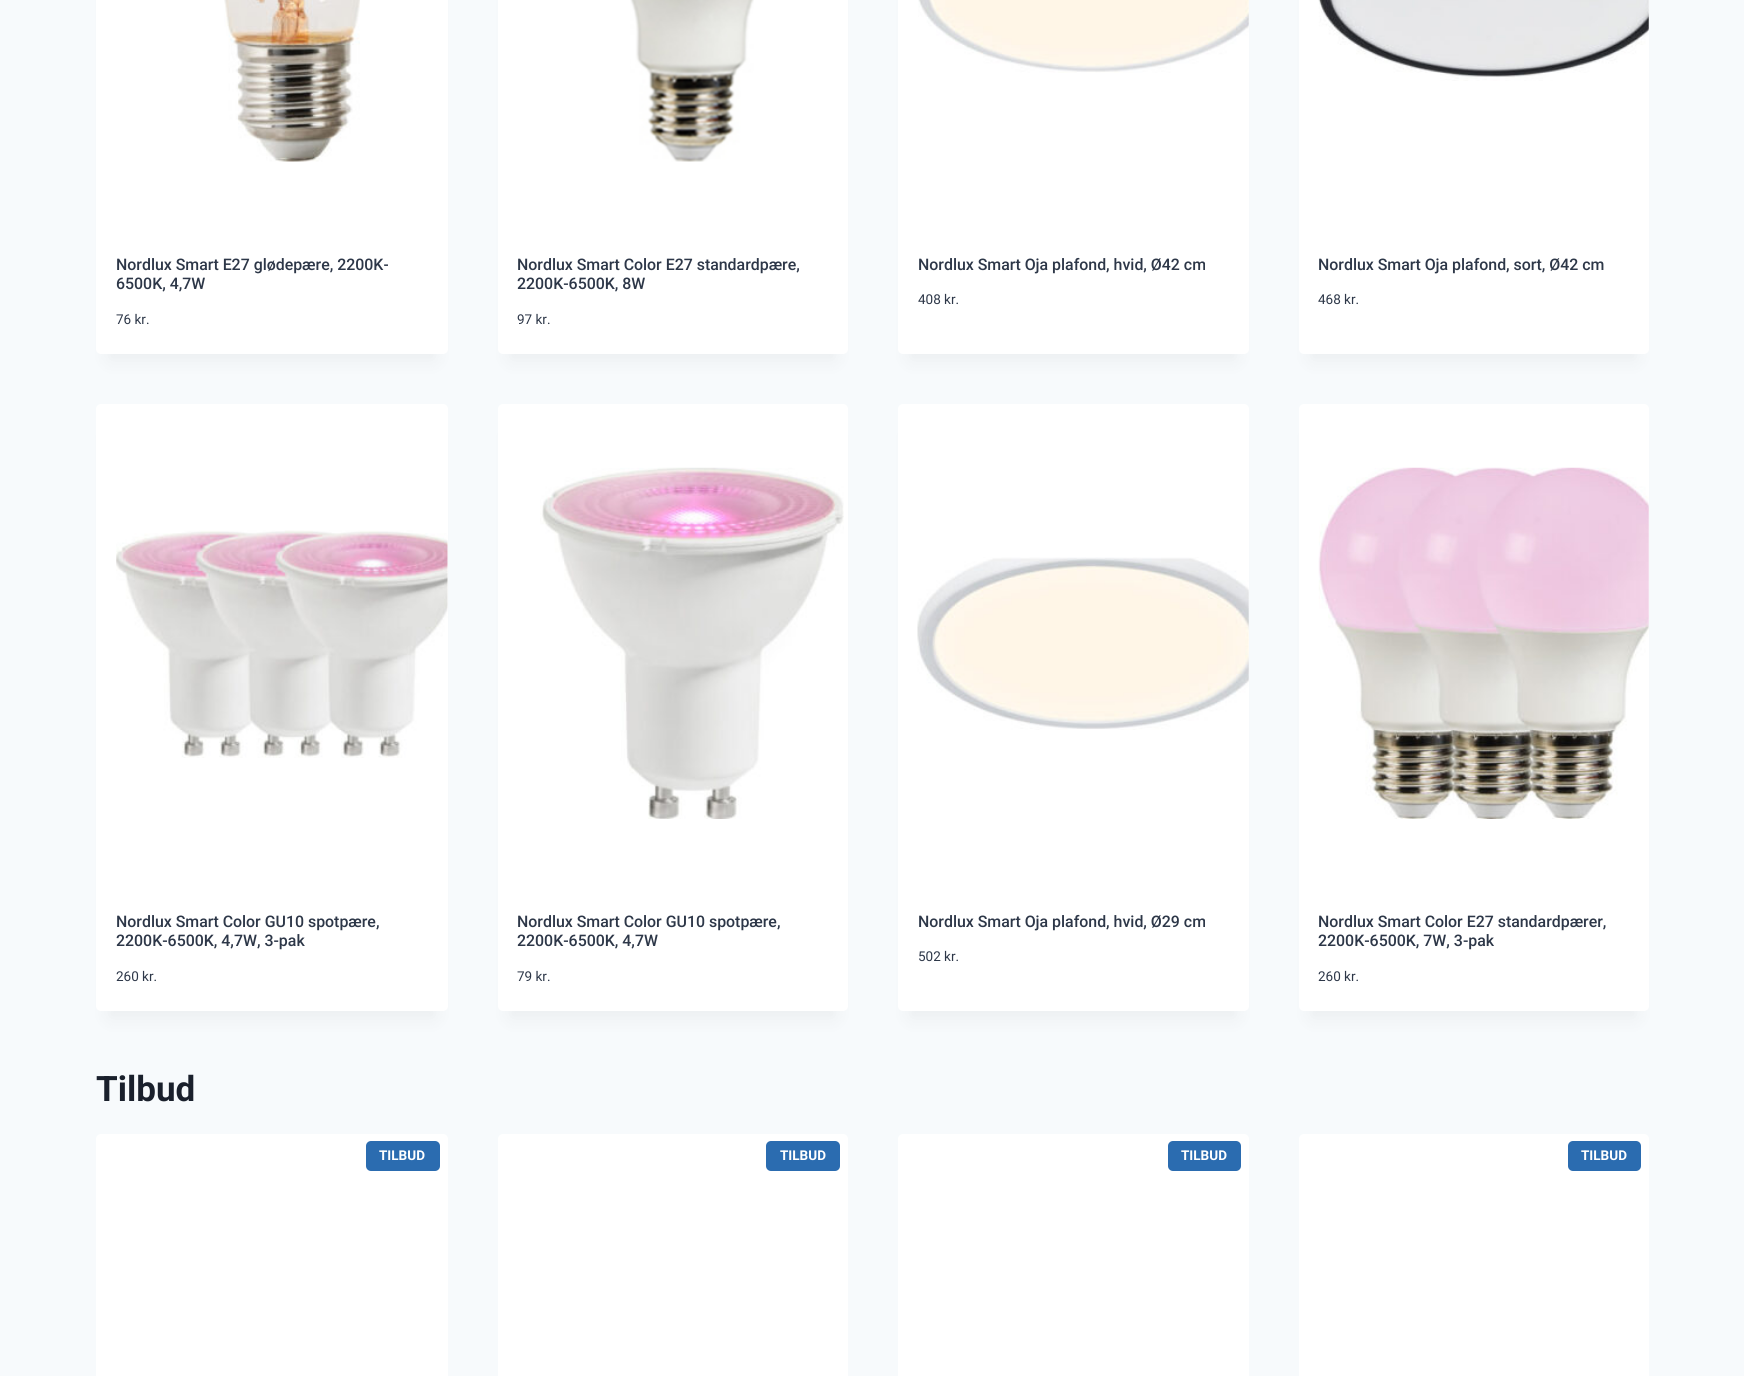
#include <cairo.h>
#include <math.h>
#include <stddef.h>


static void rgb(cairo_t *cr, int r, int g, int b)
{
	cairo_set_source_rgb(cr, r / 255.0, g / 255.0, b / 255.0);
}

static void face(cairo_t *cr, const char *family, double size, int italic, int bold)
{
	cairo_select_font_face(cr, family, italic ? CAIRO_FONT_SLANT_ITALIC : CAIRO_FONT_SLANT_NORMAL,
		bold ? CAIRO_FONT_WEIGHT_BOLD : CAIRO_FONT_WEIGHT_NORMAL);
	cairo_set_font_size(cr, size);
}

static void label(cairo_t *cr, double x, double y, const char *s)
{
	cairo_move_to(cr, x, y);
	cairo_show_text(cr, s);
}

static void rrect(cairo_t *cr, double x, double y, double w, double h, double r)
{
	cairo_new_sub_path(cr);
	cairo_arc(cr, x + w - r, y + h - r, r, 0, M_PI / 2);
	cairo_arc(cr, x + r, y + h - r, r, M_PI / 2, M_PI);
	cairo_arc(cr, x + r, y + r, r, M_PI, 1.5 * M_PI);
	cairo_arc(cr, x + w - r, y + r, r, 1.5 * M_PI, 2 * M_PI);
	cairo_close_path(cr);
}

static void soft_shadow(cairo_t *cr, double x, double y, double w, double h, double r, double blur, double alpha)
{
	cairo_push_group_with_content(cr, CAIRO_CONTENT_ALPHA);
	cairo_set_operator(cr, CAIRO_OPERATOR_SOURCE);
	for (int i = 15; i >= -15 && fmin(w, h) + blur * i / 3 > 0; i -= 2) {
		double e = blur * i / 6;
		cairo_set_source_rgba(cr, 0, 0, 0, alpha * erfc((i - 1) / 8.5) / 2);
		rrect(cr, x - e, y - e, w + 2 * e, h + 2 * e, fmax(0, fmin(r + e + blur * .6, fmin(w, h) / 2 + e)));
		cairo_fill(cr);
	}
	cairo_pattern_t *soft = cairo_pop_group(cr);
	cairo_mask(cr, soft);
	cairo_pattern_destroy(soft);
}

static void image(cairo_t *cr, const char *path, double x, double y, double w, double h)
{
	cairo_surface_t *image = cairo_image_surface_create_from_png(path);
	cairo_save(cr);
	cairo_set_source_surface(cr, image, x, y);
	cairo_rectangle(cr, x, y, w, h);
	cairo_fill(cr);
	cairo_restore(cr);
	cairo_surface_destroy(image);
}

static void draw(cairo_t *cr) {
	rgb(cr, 247, 250, 252);
	cairo_paint(cr);
	rgb(cr, 0, 0, 0);
	soft_shadow(cr, 109, -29, 326, 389, 0, 9.5, 0.05);
	rgb(cr, 255, 255, 255);
	rrect(cr, 96, -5, 352, 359, 5);
	cairo_fill(cr);
	image(cr, "image0.png", 224, 0, 136, 162);
	face(cr, "Roboto Medium", 15.9, 0, 0);
	rgb(cr, 45, 55, 72);
	label(cr, 116, 270, "Nordlux Smart E27 glødepære, 2200K-");
	label(cr, 116, 289, "6500K, 4,7W");
	face(cr, "Roboto", 13.5, 0, 0);
	label(cr, 116, 324, "76 kr.");
	rgb(cr, 0, 0, 0);
	soft_shadow(cr, 510, -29, 325, 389, 0, 9.5, 0.05);
	rgb(cr, 255, 255, 255);
	rrect(cr, 498, -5, 350, 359, 5);
	cairo_fill(cr);
	image(cr, "image1.png", 630, 0, 124, 162);
	face(cr, "Roboto Medium", 15.9, 0, 0);
	rgb(cr, 45, 55, 72);
	label(cr, 517, 270, "Nordlux Smart Color E27 standardpære,");
	label(cr, 517, 289, "2200K-6500K, 8W");
	face(cr, "Roboto", 13.5, 0, 0);
	label(cr, 517, 324, "97 kr.");
	rgb(cr, 0, 0, 0);
	soft_shadow(cr, 910, -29, 326, 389, 0, 9.5, 0.05);
	rgb(cr, 255, 255, 255);
	rrect(cr, 898, -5, 351, 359, 5);
	cairo_fill(cr);
	image(cr, "image2.png", 918, 0, 331, 73);
	face(cr, "Roboto Medium", 15.9, 0, 0);
	rgb(cr, 45, 55, 72);
	label(cr, 918, 270, "Nordlux Smart Oja plafond, hvid, Ø42 cm");
	face(cr, "Roboto", 13.5, 0, 0);
	label(cr, 918, 304, "408 kr.");
	rgb(cr, 0, 0, 0);
	soft_shadow(cr, 1311, -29, 325, 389, 0, 9.5, 0.05);
	rgb(cr, 255, 255, 255);
	rrect(cr, 1299, -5, 350, 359, 5);
	cairo_fill(cr);
	image(cr, "image3.png", 1318, 0, 331, 81);
	face(cr, "Roboto Medium", 15.9, 0, 0);
	rgb(cr, 45, 55, 72);
	label(cr, 1318, 270, "Nordlux Smart Oja plafond, sort, Ø42 cm");
	face(cr, "Roboto", 13.5, 0, 0);
	label(cr, 1318, 304, "468 kr.");
	rgb(cr, 0, 0, 0);
	soft_shadow(cr, 109, 435, 326, 583, 0, 9.5, 0.05);
	rgb(cr, 255, 255, 255);
	rrect(cr, 96, 404, 352, 607, 5);
	cairo_fill(cr);
	image(cr, "image4.png", 116, 530, 332, 228);
	face(cr, "Roboto Medium", 15.9, 0, 0);
	rgb(cr, 45, 55, 72);
	label(cr, 116, 927, "Nordlux Smart Color GU10 spotpære,");
	label(cr, 116, 946, "2200K-6500K, 4,7W, 3-pak");
	face(cr, "Roboto", 13.5, 0, 0);
	label(cr, 116, 981, "260 kr.");
	rgb(cr, 0, 0, 0);
	soft_shadow(cr, 510, 435, 325, 583, 0, 9.5, 0.05);
	rgb(cr, 255, 255, 255);
	rrect(cr, 498, 404, 350, 607, 5);
	cairo_fill(cr);
	image(cr, "image5.png", 540, 467, 304, 352);
	face(cr, "Roboto Medium", 15.9, 0, 0);
	rgb(cr, 45, 55, 72);
	label(cr, 517, 927, "Nordlux Smart Color GU10 spotpære,");
	label(cr, 517, 946, "2200K-6500K, 4,7W");
	face(cr, "Roboto", 13.5, 0, 0);
	label(cr, 517, 981, "79 kr.");
	rgb(cr, 0, 0, 0);
	soft_shadow(cr, 910, 435, 326, 583, 0, 9.5, 0.05);
	rgb(cr, 255, 255, 255);
	rrect(cr, 898, 404, 351, 607, 5);
	cairo_fill(cr);
	image(cr, "image6.png", 917, 557, 332, 173);
	face(cr, "Roboto Medium", 15.9, 0, 0);
	rgb(cr, 45, 55, 72);
	label(cr, 918, 927, "Nordlux Smart Oja plafond, hvid, Ø29 cm");
	face(cr, "Roboto", 13.5, 0, 0);
	label(cr, 918, 961, "502 kr.");
	rgb(cr, 0, 0, 0);
	soft_shadow(cr, 1311, 435, 325, 583, 0, 9.5, 0.05);
	rgb(cr, 255, 255, 255);
	rrect(cr, 1299, 404, 350, 607, 5);
	cairo_fill(cr);
	image(cr, "image7.png", 1318, 467, 331, 352);
	face(cr, "Roboto Medium", 15.9, 0, 0);
	rgb(cr, 45, 55, 72);
	label(cr, 1318, 927, "Nordlux Smart Color E27 standardpærer,");
	label(cr, 1318, 946, "2200K-6500K, 7W, 3-pak");
	face(cr, "Roboto", 13.5, 0, 0);
	label(cr, 1318, 981, "260 kr.");
	face(cr, "Roboto", 35, 0, 1);
	rgb(cr, 26, 32, 44);
	label(cr, 96, 1101, "Tilbud");
	rgb(cr, 255, 255, 255);
	rrect(cr, 96, 1134, 352, 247, 5);
	cairo_fill(cr);
	rgb(cr, 43, 108, 176);
	rrect(cr, 366, 1141, 74, 30, 5);
	cairo_fill(cr);
	face(cr, "Roboto", 13.5, 0, 1);
	rgb(cr, 255, 255, 255);
	label(cr, 379, 1160, "TILBUD");
	rrect(cr, 498, 1134, 350, 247, 5);
	cairo_fill(cr);
	rgb(cr, 43, 108, 176);
	rrect(cr, 766, 1141, 74, 30, 5);
	cairo_fill(cr);
	rgb(cr, 255, 255, 255);
	label(cr, 780, 1160, "TILBUD");
	rrect(cr, 898, 1134, 351, 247, 5);
	cairo_fill(cr);
	rgb(cr, 43, 108, 176);
	rrect(cr, 1168, 1141, 73, 30, 5);
	cairo_fill(cr);
	rgb(cr, 255, 255, 255);
	label(cr, 1181, 1160, "TILBUD");
	rrect(cr, 1299, 1134, 350, 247, 5);
	cairo_fill(cr);
	rgb(cr, 43, 108, 176);
	rrect(cr, 1568, 1141, 73, 30, 5);
	cairo_fill(cr);
	rgb(cr, 255, 255, 255);
	label(cr, 1581, 1160, "TILBUD");
}

int main(void) {
	cairo_surface_t *surface = cairo_image_surface_create(CAIRO_FORMAT_RGB24, 1744, 1376);
	cairo_t *cr = cairo_create(surface);
	cairo_font_options_t *options = cairo_font_options_create();
	cairo_font_options_set_hint_metrics(options, CAIRO_HINT_METRICS_OFF);
	cairo_font_options_set_hint_style(options, CAIRO_HINT_STYLE_NONE);
	cairo_set_font_options(cr, options);
	cairo_set_miter_limit(cr, 4);
	draw(cr);
	cairo_surface_write_to_png(surface, "render.png");
	cairo_font_options_destroy(options);
	cairo_destroy(cr);
	cairo_surface_destroy(surface);
	return 0;
}
